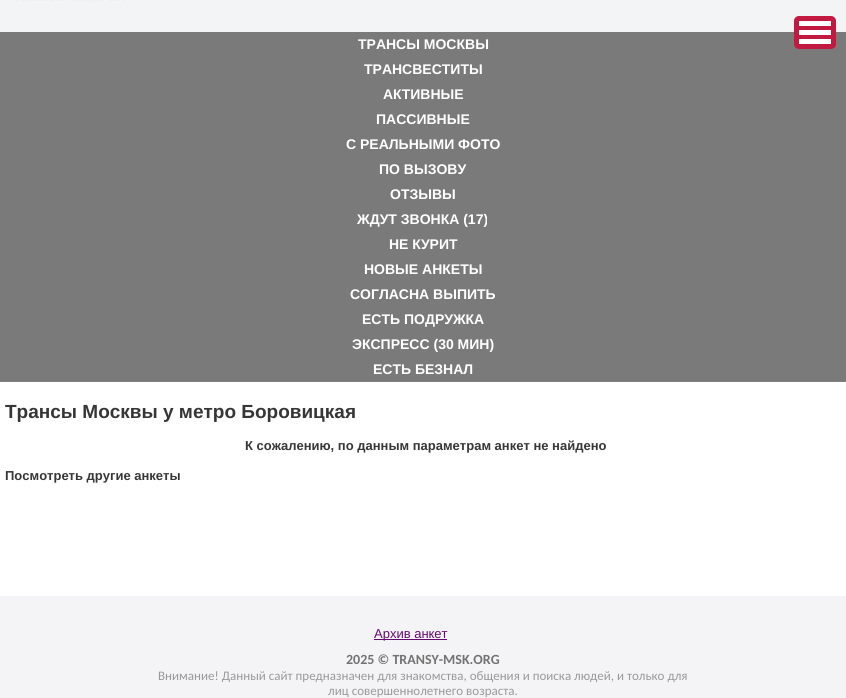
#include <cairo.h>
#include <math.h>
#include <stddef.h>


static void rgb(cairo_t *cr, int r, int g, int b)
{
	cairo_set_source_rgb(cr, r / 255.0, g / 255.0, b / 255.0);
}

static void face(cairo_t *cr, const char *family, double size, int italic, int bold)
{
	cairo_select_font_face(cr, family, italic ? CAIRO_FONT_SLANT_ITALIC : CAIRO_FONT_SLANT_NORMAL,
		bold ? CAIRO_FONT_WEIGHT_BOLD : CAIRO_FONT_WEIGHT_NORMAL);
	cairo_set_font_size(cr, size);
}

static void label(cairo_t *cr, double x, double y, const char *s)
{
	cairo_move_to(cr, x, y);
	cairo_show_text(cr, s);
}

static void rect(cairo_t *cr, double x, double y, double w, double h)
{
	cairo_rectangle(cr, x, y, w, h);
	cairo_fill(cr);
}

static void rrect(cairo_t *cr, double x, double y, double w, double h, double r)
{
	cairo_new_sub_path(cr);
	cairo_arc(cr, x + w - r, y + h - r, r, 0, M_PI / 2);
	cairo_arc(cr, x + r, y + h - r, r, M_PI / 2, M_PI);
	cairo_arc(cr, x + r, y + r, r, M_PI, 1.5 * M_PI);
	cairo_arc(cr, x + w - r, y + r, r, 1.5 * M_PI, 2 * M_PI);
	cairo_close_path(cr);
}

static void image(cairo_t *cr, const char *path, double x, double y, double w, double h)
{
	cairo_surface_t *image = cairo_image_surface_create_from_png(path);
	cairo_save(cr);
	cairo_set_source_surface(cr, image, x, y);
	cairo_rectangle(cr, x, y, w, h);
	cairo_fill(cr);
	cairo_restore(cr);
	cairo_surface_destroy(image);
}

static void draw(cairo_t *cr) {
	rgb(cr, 255, 255, 255);
	cairo_paint(cr);
	rgb(cr, 128, 128, 128);
	rect(cr, 0, 381, 846, 1);
	rgb(cr, 243, 244, 246);
	rect(cr, 0, 0, 846, 32);
	rgb(cr, 122, 122, 123);
	rect(cr, 0, 32, 846, 349);
	image(cr, "image0.png", 16, 0, 109, 1);
	rgb(cr, 193, 25, 64);
	rrect(cr, 794, 16, 42, 33, 5);
	cairo_fill(cr);
	rgb(cr, 255, 255, 255);
	rect(cr, 799, 21, 32, 5);
	rect(cr, 799, 30, 32, 5);
	rect(cr, 799, 39, 32, 5);
	face(cr, "Liberation Sans", 14, 0, 1);
	label(cr, 358, 49, "ТРАНСЫ МОСКВЫ");
	label(cr, 364, 74, "ТРАНСВЕСТИТЫ");
	label(cr, 383, 99, "АКТИВНЫЕ");
	label(cr, 376, 124, "ПАССИВНЫЕ");
	label(cr, 346, 149, "С РЕАЛЬНЫМИ ФОТО");
	label(cr, 379, 174, "ПО ВЫЗОВУ");
	label(cr, 390, 199, "ОТЗЫВЫ");
	label(cr, 357, 224, "ЖДУТ ЗВОНКА (17)");
	label(cr, 389, 249, "НЕ КУРИТ");
	label(cr, 364, 274, "НОВЫЕ АНКЕТЫ");
	label(cr, 350, 299, "СОГЛАСНА ВЫПИТЬ");
	label(cr, 362, 324, "ЕСТЬ ПОДРУЖКА");
	label(cr, 352, 349, "ЭКСПРЕСС (30 МИН)");
	label(cr, 373, 374, "ЕСТЬ БЕЗНАЛ");
	face(cr, "Liberation Sans", 19, 0, 1);
	rgb(cr, 54, 54, 54);
	label(cr, 5, 418, "Трансы Москвы у метро Боровицкая");
	face(cr, "Liberation Sans", 13, 0, 1);
	label(cr, 245, 450, "К сожалению, по данным параметрам анкет не найдено");
	label(cr, 5, 480, "Посмотреть другие анкеты");
	rgb(cr, 244, 244, 246);
	rect(cr, 0, 596, 846, 102);
	rgb(cr, 101, 9, 111);
	rect(cr, 374, 639, 73, 1);
	face(cr, "Liberation Sans", 13, 0, 0);
	label(cr, 374, 638, "Архив анкет");
	face(cr, "Carlito", 14, 0, 1);
	rgb(cr, 115, 115, 115);
	label(cr, 346, 664, "2025 © TRANSY-MSK.ORG");
	face(cr, "Carlito", 13, 0, 0);
	rgb(cr, 153, 153, 153);
	label(cr, 158, 680, "Внимание! Данный сайт предназначен для знакомства, общения и поиска людей, и только для");
	label(cr, 328, 695, "лиц совершеннолетнего возраста.");
}

int main(void) {
	cairo_surface_t *surface = cairo_image_surface_create(CAIRO_FORMAT_RGB24, 846, 698);
	cairo_t *cr = cairo_create(surface);
	cairo_font_options_t *options = cairo_font_options_create();
	cairo_font_options_set_hint_metrics(options, CAIRO_HINT_METRICS_OFF);
	cairo_font_options_set_hint_style(options, CAIRO_HINT_STYLE_NONE);
	cairo_set_font_options(cr, options);
	cairo_set_miter_limit(cr, 4);
	draw(cr);
	cairo_surface_write_to_png(surface, "render.png");
	cairo_font_options_destroy(options);
	cairo_destroy(cr);
	cairo_surface_destroy(surface);
	return 0;
}
